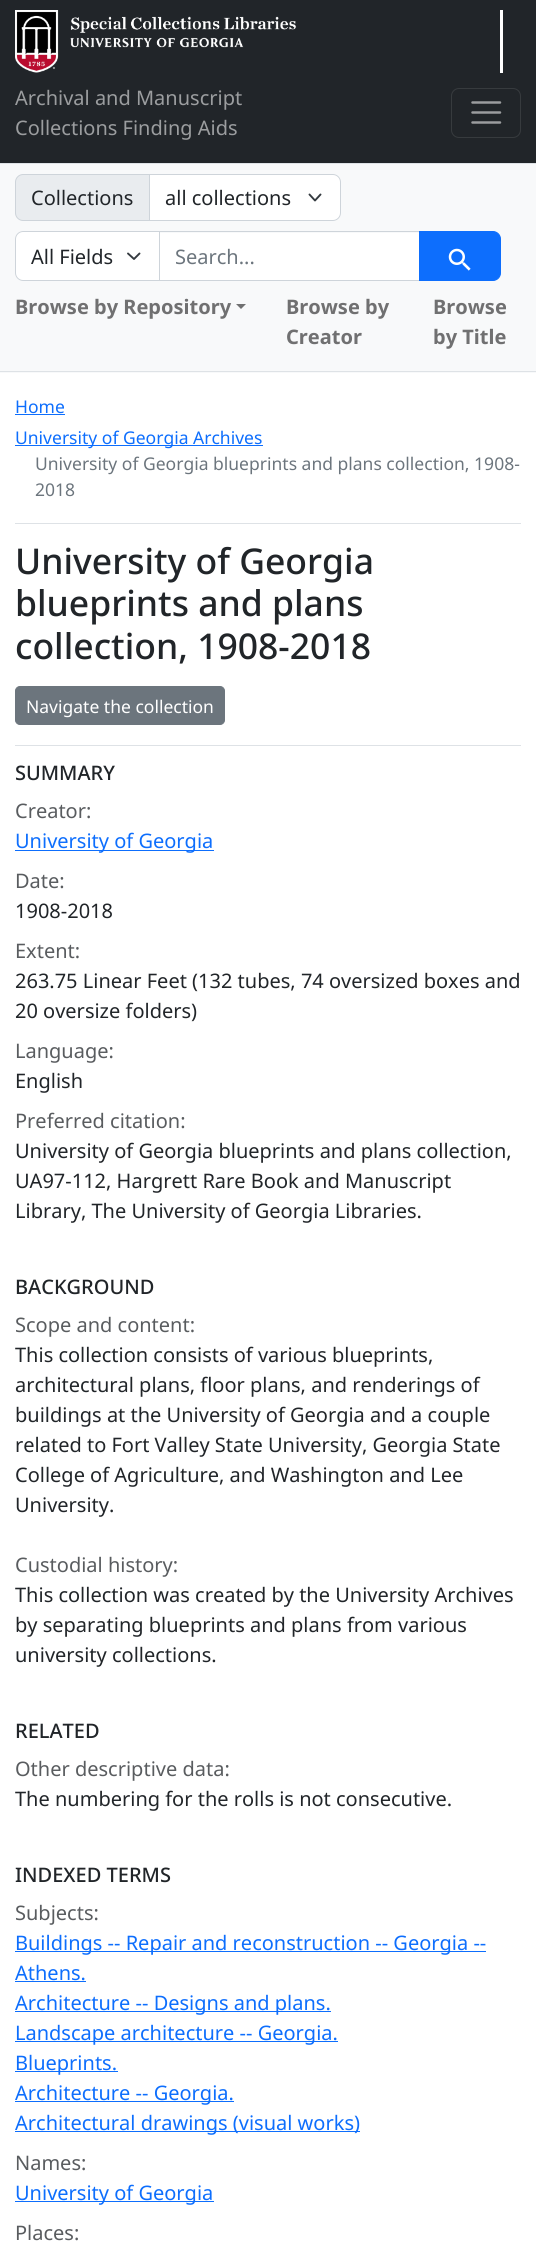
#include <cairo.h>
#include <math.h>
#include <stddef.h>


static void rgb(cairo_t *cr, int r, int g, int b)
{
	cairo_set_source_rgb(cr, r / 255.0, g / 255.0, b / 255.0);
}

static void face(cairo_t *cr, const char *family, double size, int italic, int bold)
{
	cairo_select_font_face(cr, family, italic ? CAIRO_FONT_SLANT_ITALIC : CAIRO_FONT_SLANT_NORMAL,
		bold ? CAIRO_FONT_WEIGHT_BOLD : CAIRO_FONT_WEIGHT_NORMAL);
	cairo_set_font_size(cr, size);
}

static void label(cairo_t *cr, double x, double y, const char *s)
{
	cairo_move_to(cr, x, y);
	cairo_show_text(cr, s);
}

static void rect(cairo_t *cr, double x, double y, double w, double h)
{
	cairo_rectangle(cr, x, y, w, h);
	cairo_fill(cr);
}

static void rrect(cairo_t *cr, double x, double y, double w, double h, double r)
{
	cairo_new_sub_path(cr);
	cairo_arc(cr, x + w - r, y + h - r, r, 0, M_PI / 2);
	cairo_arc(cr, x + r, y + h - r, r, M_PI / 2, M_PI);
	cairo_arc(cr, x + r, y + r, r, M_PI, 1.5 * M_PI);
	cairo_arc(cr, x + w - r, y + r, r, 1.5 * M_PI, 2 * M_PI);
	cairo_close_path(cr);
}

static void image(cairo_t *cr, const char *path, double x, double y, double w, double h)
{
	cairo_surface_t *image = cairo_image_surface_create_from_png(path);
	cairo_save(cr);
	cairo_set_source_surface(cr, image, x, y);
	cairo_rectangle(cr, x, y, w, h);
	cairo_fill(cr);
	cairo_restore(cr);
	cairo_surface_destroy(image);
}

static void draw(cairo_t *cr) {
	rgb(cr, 255, 255, 255);
	cairo_paint(cr);
	rgb(cr, 33, 37, 41);
	rect(cr, 0, 0, 536, 163);
	image(cr, "image0.png", 15, 10, 282, 63);
	rgb(cr, 255, 255, 255);
	rect(cr, 500, 10, 3, 63);
	face(cr, "Noto Sans", 20, 0, 0);
	rgb(cr, 155, 157, 159);
	label(cr, 15, 105, "Archival and Manuscript");
	label(cr, 15, 135, "Collections Finding Aids");
	rrect(cr, 451.5, 88.5, 69, 49, 7.5);
	rgb(cr, 55, 59, 62);
	cairo_set_line_width(cr, 1);
	cairo_stroke(cr);
	cairo_new_path(cr);
	cairo_move_to(cr, 472.5, 102.5);
	cairo_line_to(cr, 500, 102.5);
	cairo_move_to(cr, 472.5, 112.5);
	cairo_line_to(cr, 500, 112.5);
	cairo_move_to(cr, 472.5, 122.5);
	cairo_line_to(cr, 500, 122.5);
	rgb(cr, 155, 157, 159);
	cairo_set_line_width(cr, 2.5);
	cairo_set_line_cap(cr, CAIRO_LINE_CAP_ROUND);
	cairo_stroke(cr);
	rgb(cr, 248, 249, 250);
	rect(cr, 0, 164, 536, 209);
	rgb(cr, 222, 226, 230);
	rect(cr, 0, 163, 536, 1);
	rect(cr, 0, 371, 536, 1);
	rgb(cr, 233, 236, 239);
	cairo_new_path(cr);
	cairo_move_to(cr, 23, 174.5);
	cairo_line_to(cr, 149.5, 174.5);
	cairo_line_to(cr, 149.5, 220.5);
	cairo_line_to(cr, 23, 220.5);
	cairo_curve_to(cr, 19, 220.5, 15.5, 217, 15.5, 213);
	cairo_line_to(cr, 15.5, 182);
	cairo_curve_to(cr, 15.5, 178, 19, 174.5, 23, 174.5);
	cairo_close_path(cr);
	cairo_fill_preserve(cr);
	rgb(cr, 206, 212, 218);
	cairo_set_line_width(cr, 1);
	cairo_set_line_cap(cr, CAIRO_LINE_CAP_BUTT);
	cairo_stroke(cr);
	rgb(cr, 33, 37, 41);
	label(cr, 31, 205, "Collections");
	rgb(cr, 255, 255, 255);
	cairo_new_path(cr);
	cairo_move_to(cr, 149, 174);
	cairo_line_to(cr, 333, 174);
	cairo_curve_to(cr, 337.5, 174, 341, 177.5, 341, 182);
	cairo_line_to(cr, 341, 213);
	cairo_curve_to(cr, 341, 217.5, 337.5, 221, 333, 221);
	cairo_line_to(cr, 149, 221);
	cairo_close_path(cr);
	cairo_fill(cr);
	cairo_new_path(cr);
	cairo_move_to(cr, 309.5, 194.5);
	cairo_line_to(cr, 315, 200.5);
	cairo_line_to(cr, 320.5, 194.5);
	rgb(cr, 52, 58, 64);
	cairo_set_line_width(cr, 1.9);
	cairo_set_line_cap(cr, CAIRO_LINE_CAP_ROUND);
	cairo_set_line_join(cr, CAIRO_LINE_JOIN_ROUND);
	cairo_stroke(cr);
	cairo_new_path(cr);
	cairo_move_to(cr, 149.5, 174.5);
	cairo_line_to(cr, 333, 174.5);
	cairo_curve_to(cr, 337, 174.5, 340.5, 178, 340.5, 182);
	cairo_line_to(cr, 340.5, 213);
	cairo_curve_to(cr, 340.5, 217, 337, 220.5, 333, 220.5);
	cairo_line_to(cr, 149.5, 220.5);
	cairo_close_path(cr);
	rgb(cr, 206, 212, 218);
	cairo_set_line_width(cr, 1);
	cairo_set_line_cap(cr, CAIRO_LINE_CAP_BUTT);
	cairo_set_line_join(cr, CAIRO_LINE_JOIN_MITER);
	cairo_stroke(cr);
	rgb(cr, 33, 37, 41);
	label(cr, 165, 205, "all collections");
	rgb(cr, 255, 255, 255);
	cairo_new_path(cr);
	cairo_move_to(cr, 23, 231);
	cairo_line_to(cr, 160, 231);
	cairo_line_to(cr, 160, 281);
	cairo_line_to(cr, 23, 281);
	cairo_curve_to(cr, 18.5, 281, 15, 277.5, 15, 273);
	cairo_line_to(cr, 15, 239);
	cairo_curve_to(cr, 15, 234.5, 18.5, 231, 23, 231);
	cairo_close_path(cr);
	cairo_fill(cr);
	cairo_new_path(cr);
	cairo_move_to(cr, 128, 253.5);
	cairo_line_to(cr, 134, 259);
	cairo_line_to(cr, 139.5, 253.5);
	rgb(cr, 52, 58, 64);
	cairo_set_line_width(cr, 1.9);
	cairo_set_line_cap(cr, CAIRO_LINE_CAP_ROUND);
	cairo_set_line_join(cr, CAIRO_LINE_JOIN_ROUND);
	cairo_stroke(cr);
	cairo_new_path(cr);
	cairo_move_to(cr, 23, 231.5);
	cairo_line_to(cr, 159.5, 231.5);
	cairo_line_to(cr, 159.5, 280.5);
	cairo_line_to(cr, 23, 280.5);
	cairo_curve_to(cr, 19, 280.5, 15.5, 277, 15.5, 273);
	cairo_line_to(cr, 15.5, 239);
	cairo_curve_to(cr, 15.5, 235, 19, 231.5, 23, 231.5);
	cairo_close_path(cr);
	rgb(cr, 206, 212, 218);
	cairo_set_line_width(cr, 1);
	cairo_set_line_cap(cr, CAIRO_LINE_CAP_BUTT);
	cairo_set_line_join(cr, CAIRO_LINE_JOIN_MITER);
	cairo_stroke(cr);
	rgb(cr, 33, 37, 41);
	label(cr, 31, 264, "All Fields");
	rgb(cr, 255, 255, 255);
	rect(cr, 160, 233, 259, 47);
	cairo_rectangle(cr, 159.5, 231.5, 260, 49);
	rgb(cr, 206, 212, 218);
	cairo_stroke(cr);
	rgb(cr, 108, 117, 125);
	label(cr, 175, 264, "Search...");
	rgb(cr, 13, 110, 253);
	cairo_new_path(cr);
	cairo_move_to(cr, 419.5, 231.5);
	cairo_line_to(cr, 493, 231.5);
	cairo_curve_to(cr, 497, 231.5, 500.5, 235, 500.5, 239);
	cairo_line_to(cr, 500.5, 273);
	cairo_curve_to(cr, 500.5, 277, 497, 280.5, 493, 280.5);
	cairo_line_to(cr, 419.5, 280.5);
	cairo_close_path(cr);
	cairo_fill_preserve(cr);
	cairo_stroke(cr);
	image(cr, "image1.png", 448, 248, 23, 23);
	face(cr, "Noto Sans", 20, 0, 1);
	rgb(cr, 112, 112, 113);
	label(cr, 15, 314, "Browse by Repository");
	cairo_new_path(cr);
	cairo_move_to(cr, 236, 304);
	cairo_line_to(cr, 246, 304);
	cairo_line_to(cr, 241, 309);
	cairo_close_path(cr);
	cairo_fill(cr);
	label(cr, 286, 314, "Browse by");
	label(cr, 286, 344, "Creator");
	label(cr, 433, 314, "Browse");
	label(cr, 433, 344, "by Title");
	rgb(cr, 222, 226, 230);
	rect(cr, 15, 523, 506, 1);
	face(cr, "Noto Sans", 17.5, 0, 0);
	rgb(cr, 13, 110, 253);
	label(cr, 15, 413, "Home");
	rect(cr, 15, 414, 50, 1);
	rect(cr, 15, 445, 248, 1);
	label(cr, 15, 444, "University of Georgia Archives");
	rgb(cr, 108, 117, 125);
	label(cr, 35, 470, "University of Georgia blueprints and plans collection, 1908-");
	label(cr, 35, 496, "2018");
	rgb(cr, 222, 226, 230);
	rect(cr, 15, 745, 506, 1);
	face(cr, "Noto Sans Medium", 35.5, 0, 0);
	rgb(cr, 33, 37, 41);
	label(cr, 15, 574, "University of Georgia");
	label(cr, 15, 616, "blueprints and plans");
	label(cr, 15, 659, "collection, 1908-2018");
	rgb(cr, 108, 117, 125);
	rrect(cr, 15.5, 686.5, 209, 38, 4.5);
	cairo_fill_preserve(cr);
	cairo_stroke(cr);
	face(cr, "Noto Sans", 17.5, 0, 0);
	rgb(cr, 255, 255, 255);
	label(cr, 26, 713, "Navigate the collection");
	face(cr, "Noto Sans Medium", 20, 0, 0);
	rgb(cr, 33, 37, 41);
	label(cr, 15, 780, "SUMMARY");
	face(cr, "Noto Sans", 20, 0, 0);
	rgb(cr, 89, 92, 95);
	label(cr, 15, 818, "Creator:");
	rgb(cr, 13, 110, 253);
	rect(cr, 15, 850, 199, 1);
	label(cr, 15, 848, "University of Georgia");
	rgb(cr, 89, 92, 95);
	label(cr, 15, 888, "Date:");
	rgb(cr, 33, 37, 41);
	label(cr, 15, 918, "1908-2018");
	rgb(cr, 89, 92, 95);
	label(cr, 15, 958, "Extent:");
	rgb(cr, 33, 37, 41);
	label(cr, 15, 988, "263.75 Linear Feet (132 tubes, 74 oversized boxes and");
	label(cr, 15, 1018, "20 oversize folders)");
	rgb(cr, 89, 92, 95);
	label(cr, 15, 1058, "Language:");
	rgb(cr, 33, 37, 41);
	label(cr, 15, 1088, "English");
	rgb(cr, 89, 92, 95);
	label(cr, 15, 1128, "Preferred citation:");
	rgb(cr, 33, 37, 41);
	label(cr, 15, 1158, "University of Georgia blueprints and plans collection,");
	label(cr, 15, 1188, "UA97-112, Hargrett Rare Book and Manuscript");
	label(cr, 15, 1218, "Library, The University of Georgia Libraries.");
	face(cr, "Noto Sans Medium", 20, 0, 0);
	label(cr, 15, 1294, "BACKGROUND");
	face(cr, "Noto Sans", 20, 0, 0);
	rgb(cr, 89, 92, 95);
	label(cr, 15, 1332, "Scope and content:");
	rgb(cr, 33, 37, 41);
	label(cr, 15, 1362, "This collection consists of various blueprints,");
	label(cr, 15, 1392, "architectural plans, floor plans, and renderings of");
	label(cr, 15, 1422, "buildings at the University of Georgia and a couple");
	label(cr, 15, 1452, "related to Fort Valley State University, Georgia State");
	label(cr, 15, 1482, "College of Agriculture, and Washington and Lee");
	label(cr, 15, 1512, "University.");
	rgb(cr, 89, 92, 95);
	label(cr, 15, 1572, "Custodial history:");
	rgb(cr, 33, 37, 41);
	label(cr, 15, 1602, "This collection was created by the University Archives");
	label(cr, 15, 1632, "by separating blueprints and plans from various");
	label(cr, 15, 1662, "university collections.");
	face(cr, "Noto Sans Medium", 20, 0, 0);
	label(cr, 15, 1738, "RELATED");
	face(cr, "Noto Sans", 20, 0, 0);
	rgb(cr, 89, 92, 95);
	label(cr, 15, 1776, "Other descriptive data:");
	rgb(cr, 33, 37, 41);
	label(cr, 15, 1806, "The numbering for the rolls is not consecutive.");
	face(cr, "Noto Sans Medium", 20, 0, 0);
	label(cr, 15, 1882, "INDEXED TERMS");
	face(cr, "Noto Sans", 20, 0, 0);
	rgb(cr, 89, 92, 95);
	label(cr, 15, 1920, "Subjects:");
	rgb(cr, 13, 110, 253);
	rect(cr, 15, 1951, 471, 1);
	label(cr, 15, 1950, "Buildings -- Repair and reconstruction -- Georgia --");
	label(cr, 15, 1980, "Athens.");
	rect(cr, 15, 1981, 71, 1);
	rect(cr, 15, 2011, 316, 1);
	label(cr, 15, 2010, "Architecture -- Designs and plans.");
	rect(cr, 15, 2041, 323, 1);
	label(cr, 15, 2040, "Landscape architecture -- Georgia.");
	rect(cr, 15, 2071, 103, 1);
	label(cr, 15, 2070, "Blueprints.");
	rect(cr, 15, 2101, 219, 1);
	label(cr, 15, 2100, "Architecture -- Georgia.");
	rect(cr, 15, 2131, 345, 1);
	label(cr, 15, 2130, "Architectural drawings (visual works)");
	rgb(cr, 89, 92, 95);
	label(cr, 15, 2170, "Names:");
	rgb(cr, 13, 110, 253);
	rect(cr, 15, 2201, 199, 1);
	label(cr, 15, 2200, "University of Georgia");
	rgb(cr, 89, 92, 95);
	label(cr, 15, 2240, "Places:");
}

int main(void) {
	cairo_surface_t *surface = cairo_image_surface_create(CAIRO_FORMAT_RGB24, 536, 2253);
	cairo_t *cr = cairo_create(surface);
	cairo_font_options_t *options = cairo_font_options_create();
	cairo_font_options_set_hint_metrics(options, CAIRO_HINT_METRICS_OFF);
	cairo_font_options_set_hint_style(options, CAIRO_HINT_STYLE_NONE);
	cairo_set_font_options(cr, options);
	cairo_set_miter_limit(cr, 4);
	draw(cr);
	cairo_surface_write_to_png(surface, "render.png");
	cairo_font_options_destroy(options);
	cairo_destroy(cr);
	cairo_surface_destroy(surface);
	return 0;
}
